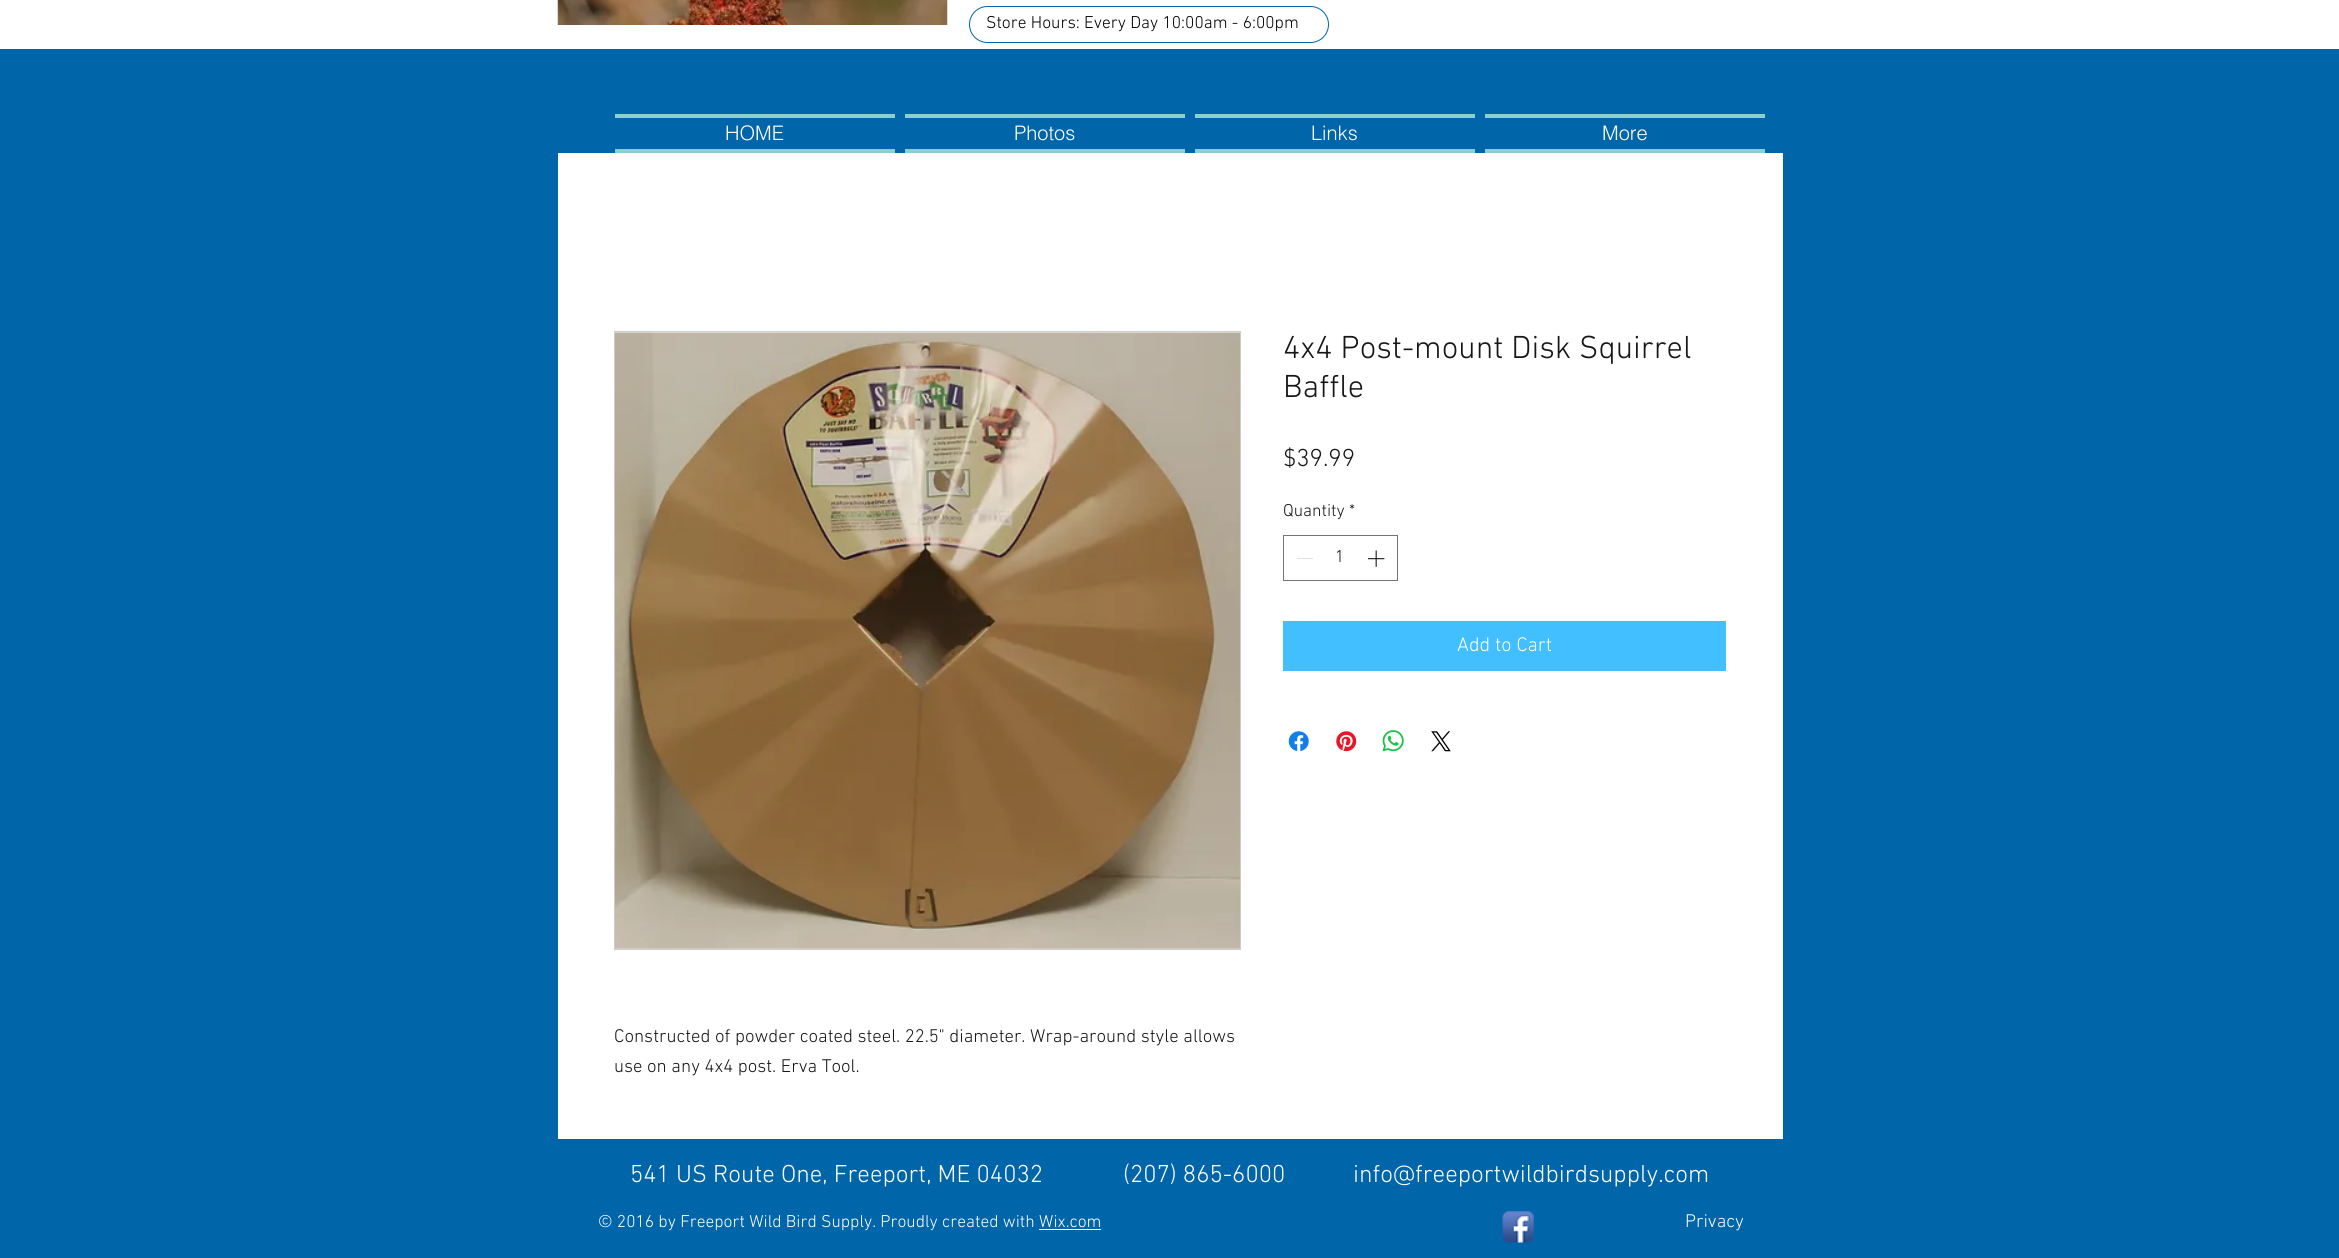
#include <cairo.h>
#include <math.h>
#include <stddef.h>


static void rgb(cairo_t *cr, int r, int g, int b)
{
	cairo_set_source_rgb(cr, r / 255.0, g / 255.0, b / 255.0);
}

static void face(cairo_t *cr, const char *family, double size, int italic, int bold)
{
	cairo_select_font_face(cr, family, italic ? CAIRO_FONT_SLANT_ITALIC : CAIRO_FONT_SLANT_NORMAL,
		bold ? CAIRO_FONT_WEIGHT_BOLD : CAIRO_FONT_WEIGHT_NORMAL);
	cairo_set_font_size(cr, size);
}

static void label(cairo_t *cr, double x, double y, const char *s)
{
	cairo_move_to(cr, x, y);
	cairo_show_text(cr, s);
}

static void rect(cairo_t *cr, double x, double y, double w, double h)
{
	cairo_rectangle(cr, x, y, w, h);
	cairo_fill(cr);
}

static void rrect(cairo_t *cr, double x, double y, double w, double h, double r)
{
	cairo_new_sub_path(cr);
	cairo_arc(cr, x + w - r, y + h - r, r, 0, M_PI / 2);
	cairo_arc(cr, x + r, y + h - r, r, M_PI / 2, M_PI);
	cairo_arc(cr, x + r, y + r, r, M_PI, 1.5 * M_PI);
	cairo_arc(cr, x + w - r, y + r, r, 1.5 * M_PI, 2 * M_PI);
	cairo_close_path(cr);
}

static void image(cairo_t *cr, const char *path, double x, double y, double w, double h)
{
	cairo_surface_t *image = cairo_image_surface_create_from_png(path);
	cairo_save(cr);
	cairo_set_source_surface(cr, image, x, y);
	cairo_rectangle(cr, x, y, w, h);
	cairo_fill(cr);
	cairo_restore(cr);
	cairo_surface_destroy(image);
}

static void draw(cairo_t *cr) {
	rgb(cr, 0, 101, 169);
	cairo_paint(cr);
	rgb(cr, 255, 255, 255);
	rect(cr, 0, 0, 2339, 49);
	image(cr, "image0.png", 557, 0, 391, 25);
	rrect(cr, 969.5, 6.5, 359, 36, 18);
	rgb(cr, 0, 101, 169);
	cairo_set_line_width(cr, 1);
	cairo_stroke(cr);
	face(cr, "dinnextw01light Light", 17.5, 0, 0);
	rgb(cr, 0, 0, 0);
	label(cr, 986, 28, "Store Hours: Every Day 10:00am - 6:00pm");
	rgb(cr, 139, 208, 205);
	rect(cr, 615, 114, 280, 4);
	rect(cr, 615, 149, 280, 4);
	face(cr, "helvetica Light", 20, 0, 0);
	rgb(cr, 255, 255, 255);
	label(cr, 725, 140, "HOME");
	rgb(cr, 139, 208, 205);
	rect(cr, 905, 114, 280, 4);
	rect(cr, 905, 149, 280, 4);
	rgb(cr, 255, 255, 255);
	label(cr, 1014, 140, "Photos");
	rgb(cr, 139, 208, 205);
	rect(cr, 1195, 114, 280, 4);
	rect(cr, 1195, 149, 280, 4);
	rgb(cr, 255, 255, 255);
	label(cr, 1311, 140, "Links");
	rgb(cr, 139, 208, 205);
	rect(cr, 1485, 114, 280, 4);
	rect(cr, 1485, 149, 280, 4);
	rgb(cr, 255, 255, 255);
	label(cr, 1602, 140, "More");
	rect(cr, 558, 153, 1225, 986);
	face(cr, "dinnextw01light Light", 32.5, 0, 0);
	rgb(cr, 23, 23, 23);
	label(cr, 1283, 358, "4x4 Post-mount Disk Squirrel");
	label(cr, 1283, 397, "Baffle");
	face(cr, "dinnextw01light Light", 25, 0, 0);
	label(cr, 1283, 466, "$39.99");
	face(cr, "dinnextw01light Light", 17.5, 0, 0);
	label(cr, 1283, 516, "Quantity");
	label(cr, 1349, 516, "*");
	cairo_rectangle(cr, 1283.5, 535.5, 114, 45);
	rgb(cr, 116, 116, 116);
	cairo_stroke(cr);
	rgb(cr, 227, 227, 227);
	rect(cr, 1297, 558, 16, 1);
	rgb(cr, 23, 23, 23);
	label(cr, 1335, 562, "1");
	image(cr, "image1.png", 1367, 550, 18, 17);
	rgb(cr, 65, 191, 255);
	rect(cr, 1283, 621, 443, 50);
	face(cr, "dinnextw01light Light", 20, 0, 0);
	rgb(cr, 255, 255, 255);
	label(cr, 1457, 651, "Add to Cart");
	image(cr, "image2.png", 1288, 731, 21, 21);
	image(cr, "image3.png", 1336, 731, 21, 21);
	image(cr, "image4.png", 1382, 730, 22, 22);
	image(cr, "image5.png", 1431, 731, 20, 21);
	cairo_rectangle(cr, 614.5, 331.5, 626, 618);
	rgb(cr, 204, 204, 204);
	cairo_stroke(cr);
	image(cr, "image6.png", 615, 332, 625, 617);
	face(cr, "dinnextw01light Light", 18.75, 0, 0);
	rgb(cr, 23, 23, 23);
	label(cr, 614, 1042, "Constructed of powder coated steel. 22.5\" diameter. Wrap-around style allows");
	label(cr, 614, 1072, "use on any 4x4 post. Erva Tool.");
	face(cr, "dinnextw01light Light", 25, 0, 0);
	rgb(cr, 255, 255, 255);
	label(cr, 630, 1182, "541 US Route One, Freeport, ME 04032             (207) 865-6000");
	label(cr, 1353, 1182, "info@freeportwildbirdsupply.com");
	face(cr, "dinnextw01light Light", 17.5, 0, 0);
	label(cr, 598, 1227, "© 2016 by Freeport Wild Bird Supply. Proudly created with Wix.com");
	rect(cr, 1039, 1229, 62, 1);
	image(cr, "image7.png", 1502, 1211, 32, 32);
	face(cr, "dinnextw01light Light", 18.75, 0, 0);
	label(cr, 1685, 1227, "Privacy");
}

int main(void) {
	cairo_surface_t *surface = cairo_image_surface_create(CAIRO_FORMAT_RGB24, 2339, 1258);
	cairo_t *cr = cairo_create(surface);
	cairo_font_options_t *options = cairo_font_options_create();
	cairo_font_options_set_hint_metrics(options, CAIRO_HINT_METRICS_OFF);
	cairo_font_options_set_hint_style(options, CAIRO_HINT_STYLE_NONE);
	cairo_set_font_options(cr, options);
	cairo_set_miter_limit(cr, 4);
	draw(cr);
	cairo_surface_write_to_png(surface, "render.png");
	cairo_font_options_destroy(options);
	cairo_destroy(cr);
	cairo_surface_destroy(surface);
	return 0;
}
